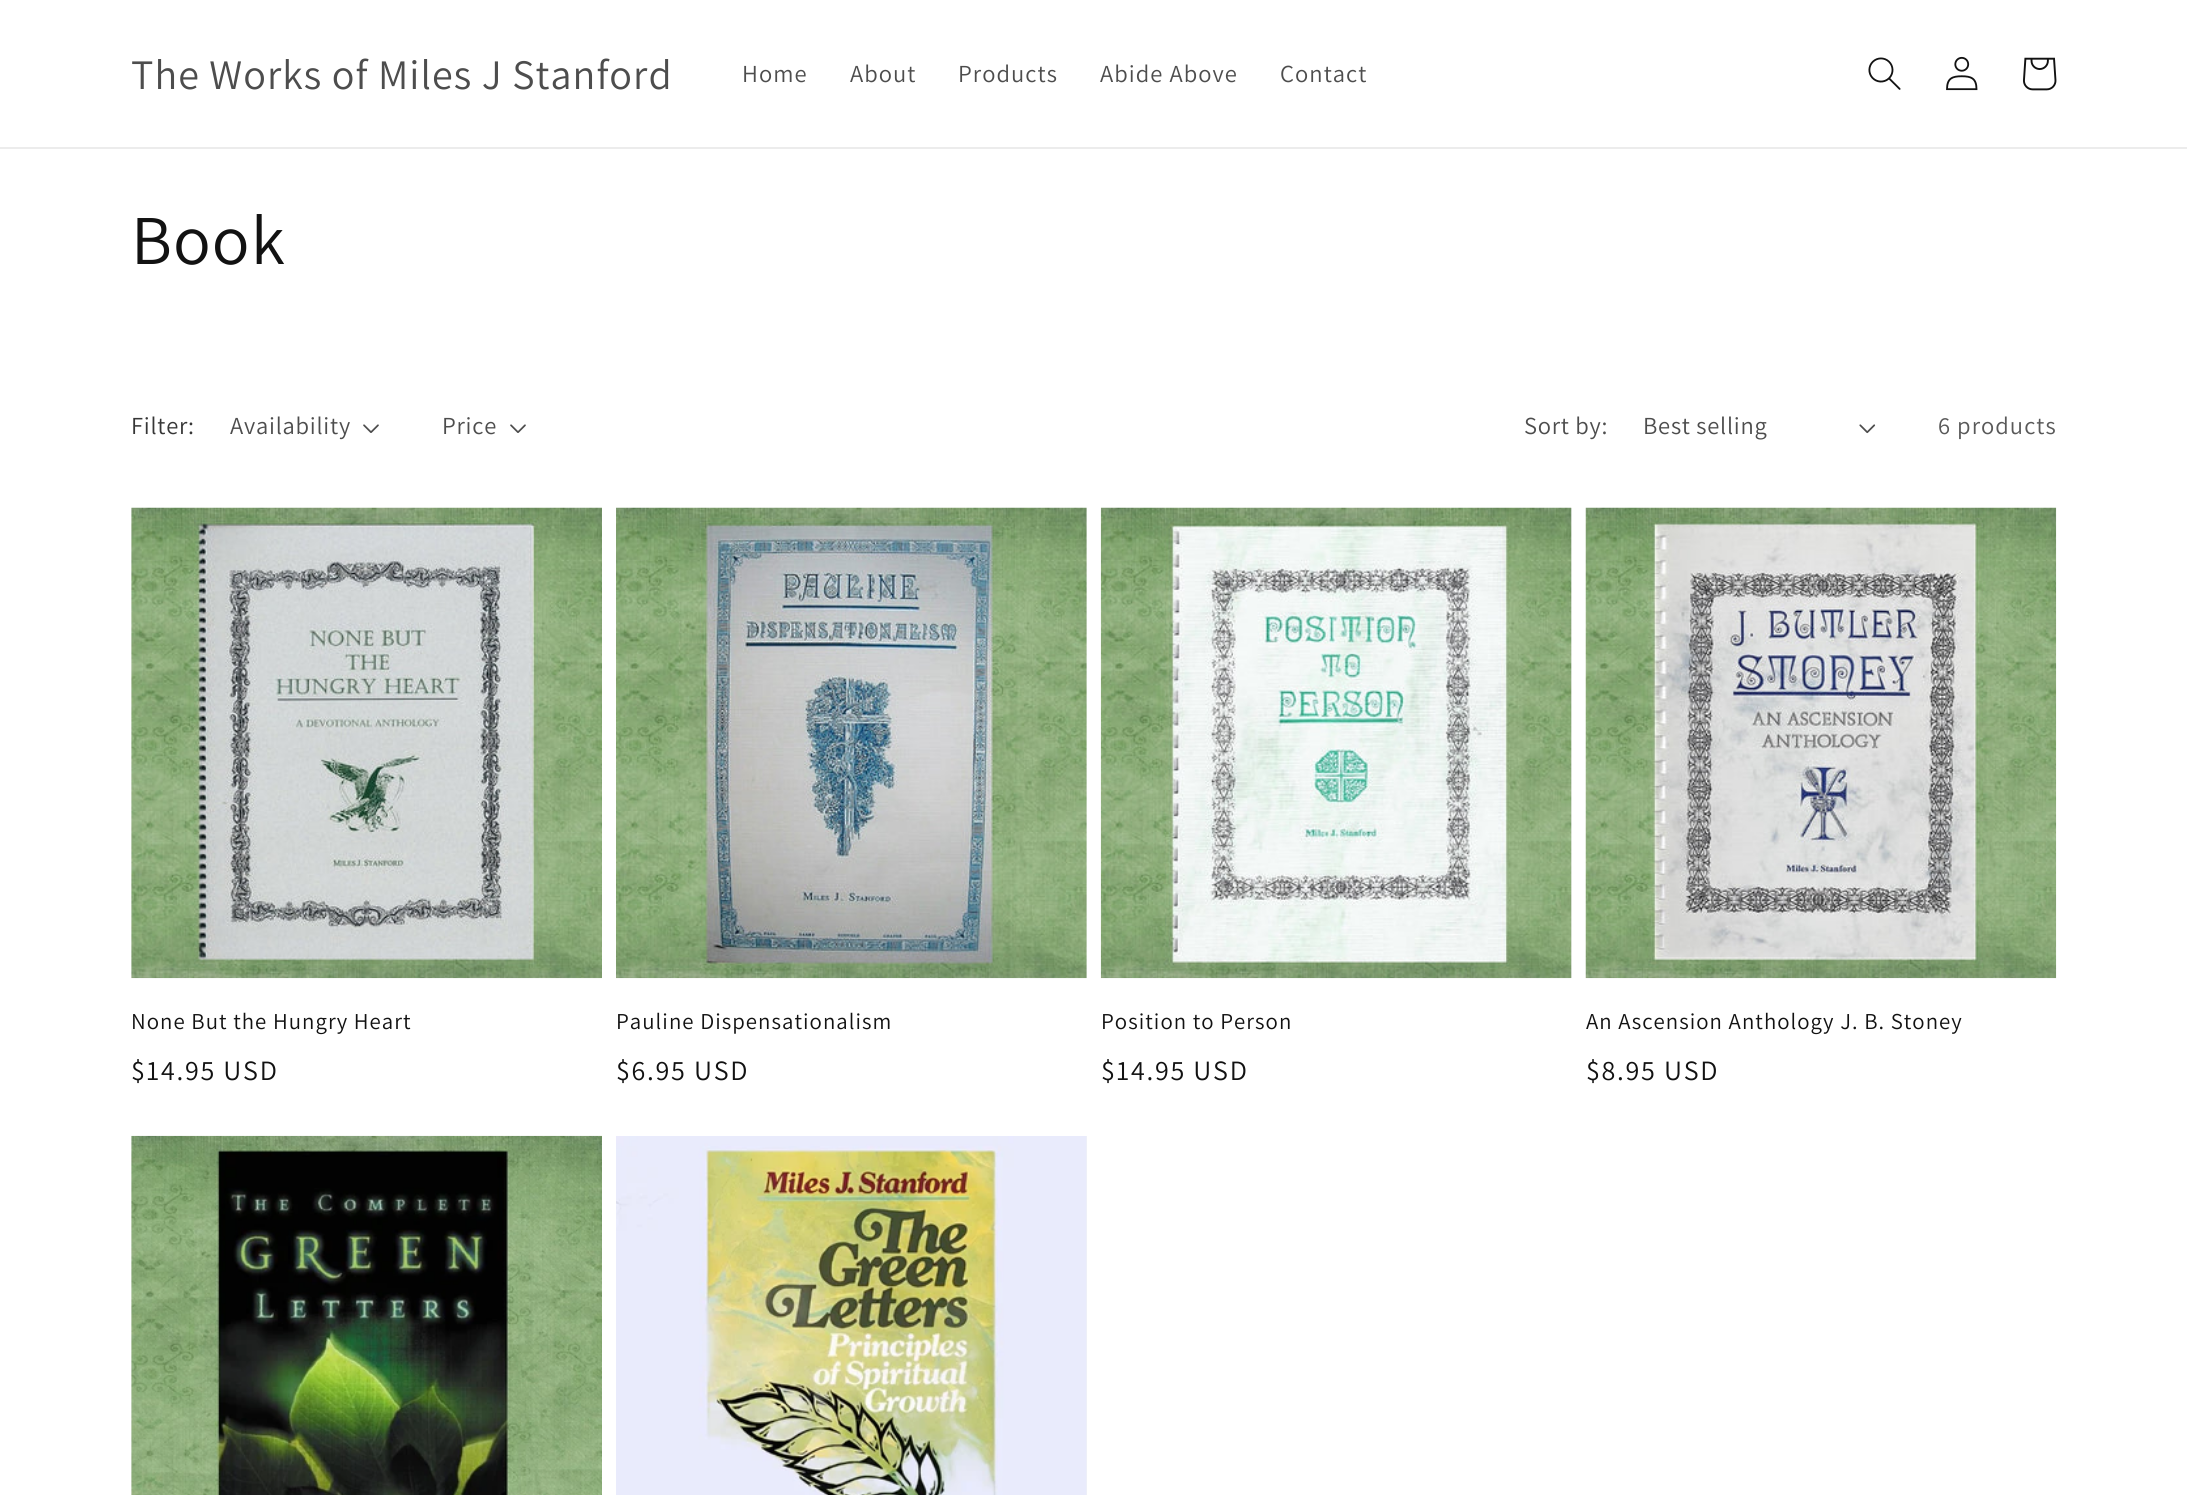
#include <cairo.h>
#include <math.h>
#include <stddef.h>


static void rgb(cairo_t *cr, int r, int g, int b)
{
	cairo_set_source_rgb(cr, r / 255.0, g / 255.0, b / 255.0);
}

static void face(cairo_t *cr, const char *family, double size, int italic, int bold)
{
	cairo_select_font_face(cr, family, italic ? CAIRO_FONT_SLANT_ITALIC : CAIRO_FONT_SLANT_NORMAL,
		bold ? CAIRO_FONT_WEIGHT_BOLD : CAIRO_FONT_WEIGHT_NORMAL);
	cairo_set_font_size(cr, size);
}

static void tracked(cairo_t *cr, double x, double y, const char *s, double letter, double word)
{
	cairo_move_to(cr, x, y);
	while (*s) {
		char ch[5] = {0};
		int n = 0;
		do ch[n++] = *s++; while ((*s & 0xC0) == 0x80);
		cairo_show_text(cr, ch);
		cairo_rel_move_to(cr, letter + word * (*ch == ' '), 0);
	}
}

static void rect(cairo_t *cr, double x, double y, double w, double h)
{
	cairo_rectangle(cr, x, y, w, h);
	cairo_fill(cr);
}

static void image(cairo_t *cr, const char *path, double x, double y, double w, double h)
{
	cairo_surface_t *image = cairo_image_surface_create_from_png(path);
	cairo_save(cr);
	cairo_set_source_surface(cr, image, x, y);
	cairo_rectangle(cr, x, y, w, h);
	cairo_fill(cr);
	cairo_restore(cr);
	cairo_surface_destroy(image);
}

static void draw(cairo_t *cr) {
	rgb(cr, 255, 255, 255);
	cairo_paint(cr);
	rgb(cr, 236, 236, 236);
	rect(cr, 0, 147, 2187, 2);
	face(cr, "Assistant", 42, 0, 0);
	rgb(cr, 77, 77, 77);
	tracked(cr, 131, 89, "The Works of Miles J Stanford", 1.05, 0);
	face(cr, "Assistant", 24.5, 0, 0);
	tracked(cr, 742, 82, "Home", 1.05, 0);
	tracked(cr, 850, 82, "About", 1.05, 0);
	tracked(cr, 958, 82, "Products", 1.05, 0);
	tracked(cr, 1100, 82, "Abide Above", 1.05, 0);
	tracked(cr, 1280, 82, "Contact", 1.05, 0);
	image(cr, "image0.png", 1868, 57, 33, 33);
	image(cr, "image1.png", 1946, 56, 32, 35);
	image(cr, "image2.png", 2023, 57, 34, 34);
	face(cr, "Assistant", 70, 0, 0);
	rgb(cr, 18, 18, 18);
	tracked(cr, 131, 264, "Book", 1.05, 0);
	face(cr, "Assistant", 24.5, 0, 0);
	rgb(cr, 54, 54, 54);
	tracked(cr, 131, 434, "Filter:", 0.75, 0);
	rgb(cr, 77, 77, 77);
	tracked(cr, 230, 434, "Availability", 0.75, 0);
	image(cr, "image3.png", 363, 424, 16, 9);
	tracked(cr, 442, 434, "Price", 0.75, 0);
	image(cr, "image3.png", 510, 424, 16, 9);
	tracked(cr, 1524, 434, "Sort by:", 0.75, 0);
	tracked(cr, 1643, 434, "Best selling", 0.75, 0);
	image(cr, "image4.png", 1859, 424, 17, 10);
	rgb(cr, 89, 89, 89);
	tracked(cr, 1938, 434, "6 products", 1.05, 0);
	rgb(cr, 243, 243, 243);
	rect(cr, 131, 508, 1, 470);
	image(cr, "image5.png", 131, 507, 471, 472);
	face(cr, "Assistant", 22.75, 0, 0);
	rgb(cr, 18, 18, 18);
	tracked(cr, 131, 1029, "None But the Hungry Heart", 1.05, 0);
	face(cr, "Assistant", 28, 0, 0);
	tracked(cr, 131, 1080, "$14.95 USD", 1.75, 0);
	rgb(cr, 243, 243, 243);
	rect(cr, 1086, 508, 1, 470);
	image(cr, "image6.png", 616, 507, 471, 472);
	face(cr, "Assistant", 22.75, 0, 0);
	rgb(cr, 18, 18, 18);
	tracked(cr, 616, 1029, "Pauline Dispensationalism", 1.05, 0);
	face(cr, "Assistant", 28, 0, 0);
	tracked(cr, 616, 1080, "$6.95 USD", 1.75, 0);
	rgb(cr, 243, 243, 243);
	rect(cr, 1571, 508, 1, 470);
	image(cr, "image7.png", 1100, 507, 472, 472);
	face(cr, "Assistant", 22.75, 0, 0);
	rgb(cr, 18, 18, 18);
	tracked(cr, 1101, 1029, "Position to Person", 1.05, 0);
	face(cr, "Assistant", 28, 0, 0);
	tracked(cr, 1101, 1080, "$14.95 USD", 1.75, 0);
	image(cr, "image8.png", 1585, 507, 472, 472);
	face(cr, "Assistant", 22.75, 0, 0);
	tracked(cr, 1586, 1029, "An Ascension Anthology J. B. Stoney", 1.05, 0);
	face(cr, "Assistant", 28, 0, 0);
	tracked(cr, 1586, 1080, "$8.95 USD", 1.75, 0);
	rgb(cr, 243, 243, 243);
	rect(cr, 131, 1136, 1, 359);
	image(cr, "image9.png", 131, 1135, 471, 360);
	rect(cr, 1086, 1136, 1, 359);
	image(cr, "image10.png", 616, 1136, 471, 359);
}

int main(void) {
	cairo_surface_t *surface = cairo_image_surface_create(CAIRO_FORMAT_RGB24, 2187, 1495);
	cairo_t *cr = cairo_create(surface);
	cairo_font_options_t *options = cairo_font_options_create();
	cairo_font_options_set_hint_metrics(options, CAIRO_HINT_METRICS_OFF);
	cairo_font_options_set_hint_style(options, CAIRO_HINT_STYLE_NONE);
	cairo_set_font_options(cr, options);
	cairo_set_miter_limit(cr, 4);
	draw(cr);
	cairo_surface_write_to_png(surface, "render.png");
	cairo_font_options_destroy(options);
	cairo_destroy(cr);
	cairo_surface_destroy(surface);
	return 0;
}
